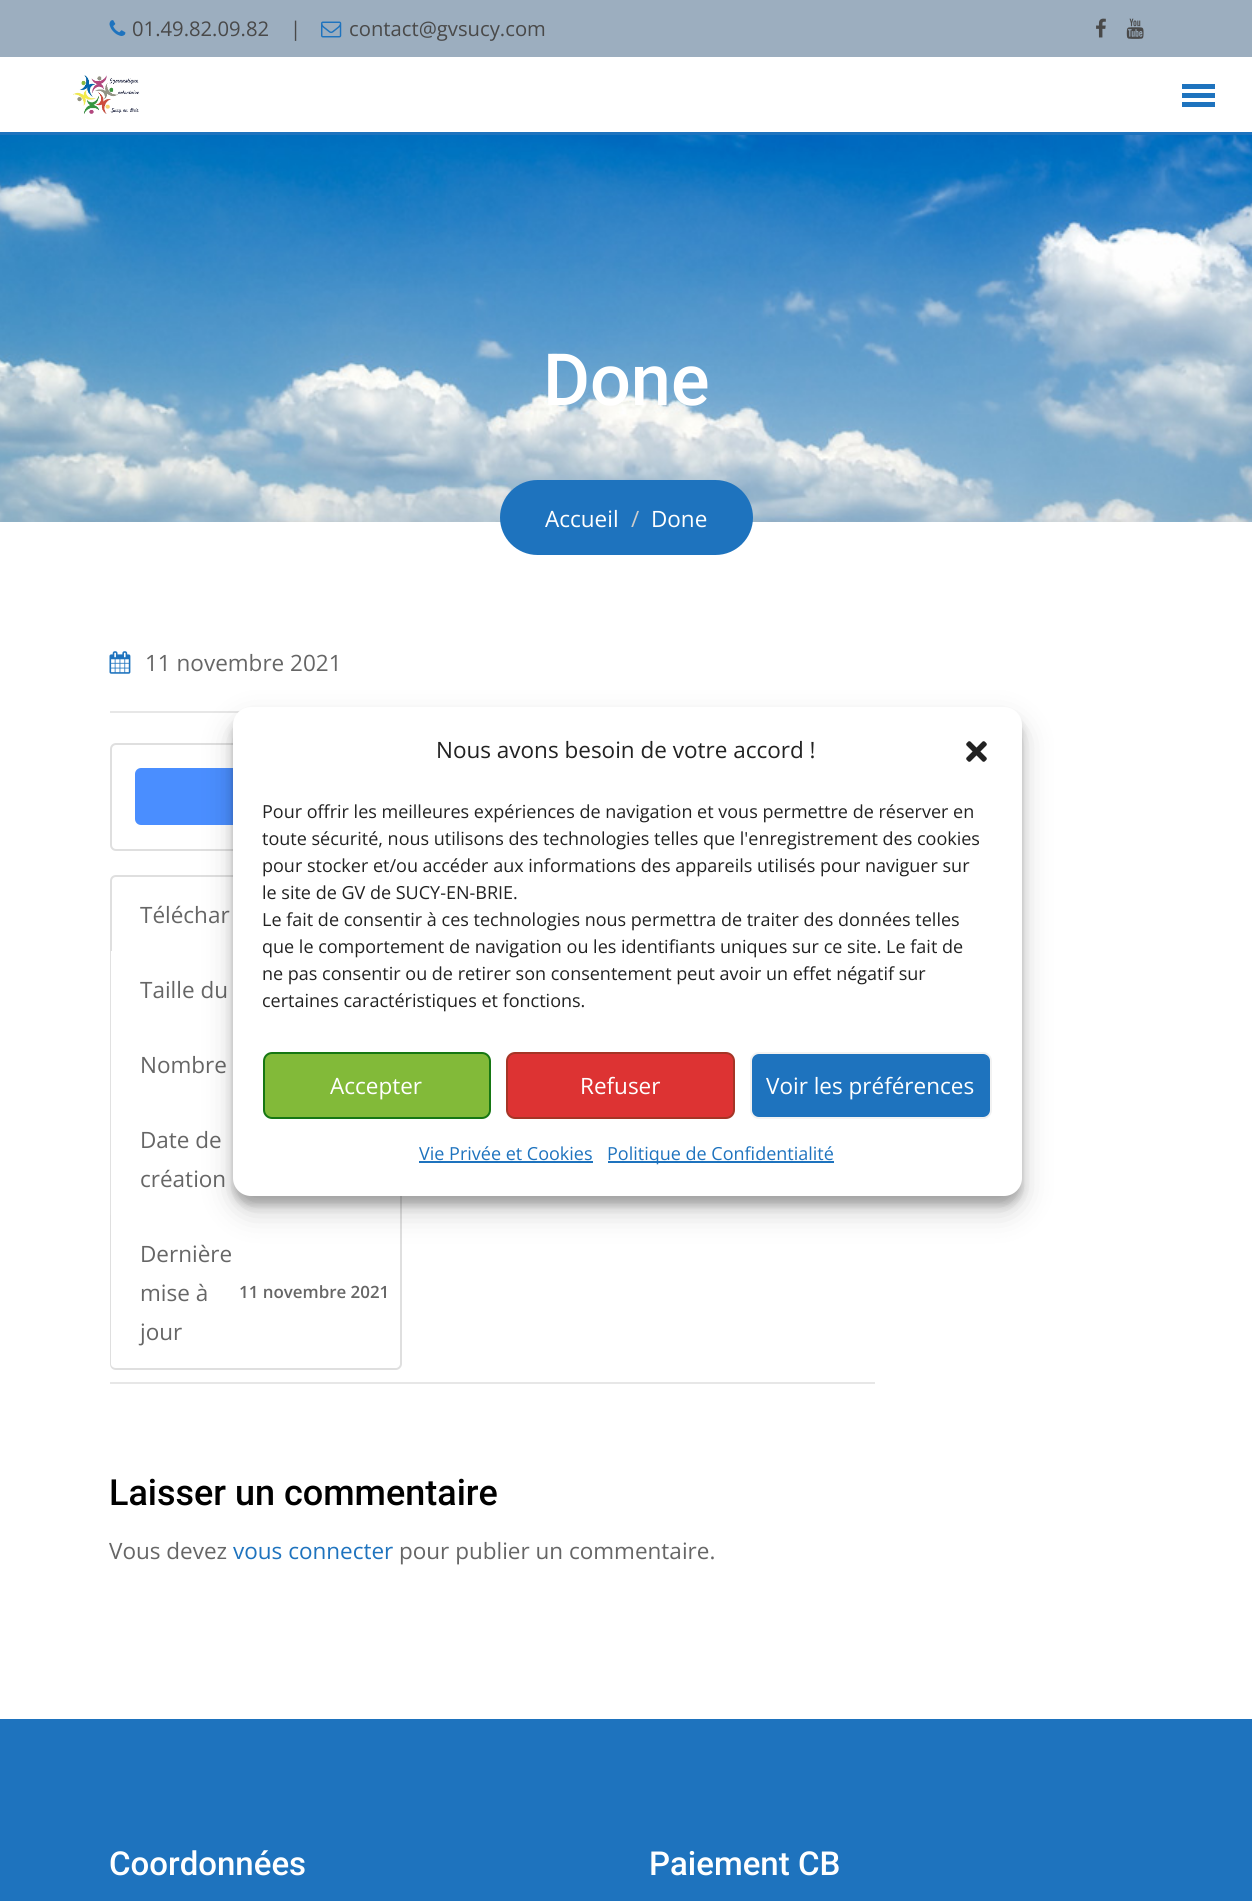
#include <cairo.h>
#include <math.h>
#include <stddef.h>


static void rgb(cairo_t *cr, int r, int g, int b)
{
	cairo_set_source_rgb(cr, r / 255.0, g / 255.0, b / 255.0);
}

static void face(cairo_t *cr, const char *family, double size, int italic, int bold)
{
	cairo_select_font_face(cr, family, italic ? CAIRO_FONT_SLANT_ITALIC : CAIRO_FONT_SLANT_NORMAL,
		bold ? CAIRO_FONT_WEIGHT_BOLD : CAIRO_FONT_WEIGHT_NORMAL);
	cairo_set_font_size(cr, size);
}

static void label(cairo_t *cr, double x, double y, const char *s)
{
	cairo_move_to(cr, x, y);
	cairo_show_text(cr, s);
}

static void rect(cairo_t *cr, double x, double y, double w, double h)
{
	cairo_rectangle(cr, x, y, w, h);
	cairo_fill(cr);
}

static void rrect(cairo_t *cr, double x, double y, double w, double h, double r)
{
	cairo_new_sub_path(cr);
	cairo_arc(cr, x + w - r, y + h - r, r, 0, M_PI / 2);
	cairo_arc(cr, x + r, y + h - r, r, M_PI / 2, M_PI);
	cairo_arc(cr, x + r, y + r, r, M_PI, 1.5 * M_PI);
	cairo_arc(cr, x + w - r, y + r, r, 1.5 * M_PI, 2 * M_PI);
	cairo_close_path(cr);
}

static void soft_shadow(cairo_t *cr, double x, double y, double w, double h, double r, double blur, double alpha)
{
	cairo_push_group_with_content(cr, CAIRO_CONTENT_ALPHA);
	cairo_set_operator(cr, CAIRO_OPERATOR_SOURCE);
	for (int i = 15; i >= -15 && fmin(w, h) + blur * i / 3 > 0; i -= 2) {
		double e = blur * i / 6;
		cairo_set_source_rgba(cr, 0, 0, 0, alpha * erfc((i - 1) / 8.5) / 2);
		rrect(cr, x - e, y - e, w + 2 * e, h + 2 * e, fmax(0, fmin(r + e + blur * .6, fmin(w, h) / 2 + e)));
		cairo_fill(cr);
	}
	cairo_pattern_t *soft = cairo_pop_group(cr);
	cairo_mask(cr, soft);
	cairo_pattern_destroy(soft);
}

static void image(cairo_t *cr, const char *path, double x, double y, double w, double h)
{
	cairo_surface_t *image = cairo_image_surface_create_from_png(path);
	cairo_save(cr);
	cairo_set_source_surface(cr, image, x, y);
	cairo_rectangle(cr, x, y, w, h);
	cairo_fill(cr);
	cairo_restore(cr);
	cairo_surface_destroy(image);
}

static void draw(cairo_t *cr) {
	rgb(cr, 255, 255, 255);
	cairo_paint(cr);
	rgb(cr, 156, 174, 191);
	rect(cr, 0, 0, 1252, 57);
	image(cr, "image0.png", 109, 20, 17, 16);
	face(cr, "Open Sans", 20.25, 0, 0);
	rgb(cr, 73, 73, 73);
	label(cr, 132, 36, "01.49.82.09.82");
	label(cr, 290, 36, "|");
	image(cr, "image1.png", 321, 21, 21, 17);
	label(cr, 349, 36, "contact@gvsucy.com");
	image(cr, "image2.png", 1096, 18, 10, 20);
	image(cr, "image3.png", 1126, 18, 18, 21);
	rgb(cr, 30, 115, 190);
	rect(cr, 0, 132, 1252, 3);
	image(cr, "image4.png", 73, 75, 67, 39);
	rect(cr, 1182, 84, 33, 5);
	rect(cr, 1182, 93, 33, 5);
	rect(cr, 1182, 102, 33, 5);
	image(cr, "image5.png", 0, 135, 1252, 387);
	face(cr, "Roboto Medium", 72, 0, 0);
	rgb(cr, 255, 255, 255);
	label(cr, 543, 405, "Done");
	rgb(cr, 30, 115, 190);
	rrect(cr, 500, 480, 253, 75, 37.5);
	cairo_fill(cr);
	face(cr, "Open Sans", 22.5, 0, 0);
	rgb(cr, 255, 255, 255);
	label(cr, 545, 527, "Accueil");
	rgb(cr, 204, 204, 204);
	label(cr, 631, 527, "/");
	rgb(cr, 255, 255, 255);
	label(cr, 651, 527, "Done");
	rgb(cr, 231, 231, 231);
	rect(cr, 110, 711, 130, 2);
	image(cr, "image6.png", 109, 651, 22, 23);
	rgb(cr, 102, 102, 102);
	label(cr, 145, 671, "11 novembre 2021");
	rrect(cr, 111, 744, 290, 106, 5);
	rgb(cr, 223, 223, 223);
	cairo_stroke(cr);
	rgb(cr, 74, 142, 255);
	rrect(cr, 136, 769, 240, 55, 5);
	cairo_fill_preserve(cr);
	cairo_stroke(cr);
	cairo_new_path(cr);
	cairo_move_to(cr, 116, 876);
	cairo_line_to(cr, 396, 876);
	cairo_curve_to(cr, 399, 876, 401, 878, 401, 881);
	cairo_line_to(cr, 401, 952);
	cairo_line_to(cr, 111, 952);
	cairo_line_to(cr, 111, 881);
	cairo_curve_to(cr, 111, 878, 113, 876, 116, 876);
	cairo_close_path(cr);
	rgb(cr, 223, 223, 223);
	cairo_stroke(cr);
	rgb(cr, 102, 102, 102);
	label(cr, 140, 923, "Téléchar");
	rgb(cr, 255, 255, 255);
	rect(cr, 110, 951, 123, 2);
	cairo_set_source_rgba(cr, 0, 0, 0, 0.12);
	cairo_new_path(cr);
	cairo_move_to(cr, 110, 1028);
	cairo_line_to(cr, 110, 951);
	cairo_line_to(cr, 111, 951);
	cairo_line_to(cr, 111, 1026);
	cairo_close_path(cr);
	cairo_fill(cr);
	rgb(cr, 102, 102, 102);
	label(cr, 140, 998, "Taille du");
	rgb(cr, 255, 255, 255);
	rect(cr, 110, 1026, 1, 2);
	cairo_set_source_rgba(cr, 0, 0, 0, 0.12);
	cairo_new_path(cr);
	cairo_move_to(cr, 110, 1102);
	cairo_line_to(cr, 110, 1026);
	cairo_line_to(cr, 111, 1026);
	cairo_line_to(cr, 111, 1101);
	cairo_close_path(cr);
	cairo_fill(cr);
	rgb(cr, 102, 102, 102);
	label(cr, 140, 1073, "Nombre");
	rgb(cr, 255, 255, 255);
	rect(cr, 110, 1101, 1, 1);
	rgb(cr, 223, 223, 223);
	cairo_new_path(cr);
	cairo_move_to(cr, 402, 1101);
	cairo_line_to(cr, 402, 1216);
	cairo_line_to(cr, 400, 1215);
	cairo_line_to(cr, 400, 1101);
	cairo_close_path(cr);
	cairo_fill(cr);
	cairo_set_source_rgba(cr, 0, 0, 0, 0.12);
	cairo_new_path(cr);
	cairo_move_to(cr, 110, 1216);
	cairo_line_to(cr, 110, 1101);
	cairo_line_to(cr, 111, 1101);
	cairo_line_to(cr, 111, 1215);
	cairo_close_path(cr);
	cairo_fill(cr);
	rgb(cr, 102, 102, 102);
	label(cr, 140, 1148, "Date de");
	label(cr, 140, 1187, "création");
	rgb(cr, 255, 255, 255);
	cairo_new_path(cr);
	cairo_move_to(cr, 110, 1215);
	cairo_line_to(cr, 402, 1215);
	cairo_line_to(cr, 402, 1364);
	cairo_curve_to(cr, 402, 1367.5, 399.5, 1370, 396, 1370);
	cairo_line_to(cr, 116, 1370);
	cairo_curve_to(cr, 112.5, 1370, 110, 1367.5, 110, 1364);
	cairo_close_path(cr);
	cairo_fill(cr);
	rgb(cr, 223, 223, 223);
	cairo_set_fill_rule(cr, CAIRO_FILL_RULE_EVEN_ODD);
	cairo_new_path(cr);
	cairo_move_to(cr, 110, 1215);
	cairo_line_to(cr, 402, 1215);
	cairo_line_to(cr, 402, 1364);
	cairo_curve_to(cr, 402, 1367, 399, 1370, 396, 1370);
	cairo_line_to(cr, 116, 1370);
	cairo_curve_to(cr, 112, 1370, 110, 1367, 110, 1364);
	cairo_close_path(cr);
	cairo_move_to(cr, 111, 1215);
	cairo_line_to(cr, 400, 1215);
	cairo_line_to(cr, 400, 1364);
	cairo_curve_to(cr, 400, 1366, 398, 1368, 396, 1368);
	cairo_line_to(cr, 116, 1368);
	cairo_curve_to(cr, 113, 1368, 111, 1366, 111, 1364);
	cairo_close_path(cr);
	cairo_fill(cr);
	rgb(cr, 102, 102, 102);
	label(cr, 140, 1262, "Dernière");
	label(cr, 140, 1301, "mise à");
	face(cr, "Open Sans SemiBold", 16.9, 0, 0);
	label(cr, 239, 1298, "11 novembre 2021");
	face(cr, "Open Sans", 22.5, 0, 0);
	label(cr, 140, 1340, "jour");
	rgb(cr, 231, 231, 231);
	rect(cr, 110, 1382, 765, 2);
	face(cr, "Roboto Medium", 36, 0, 0);
	rgb(cr, 0, 0, 0);
	label(cr, 109, 1505, "Laisser un commentaire");
	face(cr, "Open Sans", 22.5, 0, 0);
	rgb(cr, 102, 102, 102);
	label(cr, 109, 1559, "Vous devez");
	rgb(cr, 30, 115, 190);
	label(cr, 233, 1559, "vous connecter");
	rgb(cr, 102, 102, 102);
	label(cr, 399, 1559, "pour publier un commentaire.");
	rgb(cr, 30, 115, 190);
	rect(cr, 0, 1719, 1252, 182);
	face(cr, "Roboto Medium", 33, 0, 0);
	rgb(cr, 255, 255, 255);
	label(cr, 109, 1875, "Coordonnées");
	label(cr, 649, 1875, "Paiement CB");
	rgb(cr, 0, 0, 0);
	soft_shadow(cr, 233, 716, 789, 489, 18, 4.5, 0.23);
	soft_shadow(cr, 233, 722, 789, 489, 18, 15, 0.19);
	rgb(cr, 255, 255, 255);
	rrect(cr, 233, 707, 789, 489, 18);
	cairo_fill(cr);
	face(cr, "Open Sans", 22.5, 0, 0);
	rgb(cr, 34, 34, 34);
	label(cr, 436, 758, "Nous avons besoin de votre accord !");
	image(cr, "image7.png", 966, 741, 21, 21);
	face(cr, "Open Sans", 18, 0, 0);
	label(cr, 262, 818, "Pour offrir les meilleures expériences de navigation et vous permettre de réserver en");
	label(cr, 262, 845, "toute sécurité, nous utilisons des technologies telles que l'enregistrement des cookies");
	label(cr, 262, 872, "pour stocker et/ou accéder aux informations des appareils utilisés pour naviguer sur");
	label(cr, 262, 899, "le site de GV de SUCY-EN-BRIE.");
	label(cr, 262, 926, "Le fait de consentir à ces technologies nous permettra de traiter des données telles");
	cairo_save(cr);
	cairo_set_fill_rule(cr, CAIRO_FILL_RULE_WINDING);
	cairo_rectangle(cr, 263, 798, 729, 224);
	cairo_clip(cr);
	label(cr, 262, 953, "que le comportement de navigation ou les identifiants uniques sur ce site. Le fait de");
	cairo_restore(cr);
	label(cr, 262, 980, "ne pas consentir ou de retirer son consentement peut avoir un effet négatif sur");
	cairo_save(cr);
	cairo_set_fill_rule(cr, CAIRO_FILL_RULE_WINDING);
	cairo_rectangle(cr, 263, 798, 729, 224);
	cairo_clip(cr);
	label(cr, 262, 1007, "certaines caractéristiques et fonctions.");
	cairo_restore(cr);
	rgb(cr, 130, 186, 57);
	rrect(cr, 264, 1053, 226, 65, 8);
	cairo_fill_preserve(cr);
	rgb(cr, 22, 119, 19);
	cairo_stroke(cr);
	face(cr, "Open Sans", 22.5, 0, 0);
	rgb(cr, 255, 255, 255);
	label(cr, 330, 1094, "Accepter");
	rgb(cr, 221, 51, 51);
	rrect(cr, 507, 1053, 227, 65, 8);
	cairo_fill_preserve(cr);
	rgb(cr, 165, 53, 38);
	cairo_stroke(cr);
	rgb(cr, 255, 255, 255);
	label(cr, 580, 1094, "Refuser");
	rgb(cr, 30, 115, 190);
	rrect(cr, 751, 1053, 240, 65, 8);
	cairo_fill_preserve(cr);
	rgb(cr, 242, 242, 242);
	cairo_stroke(cr);
	rgb(cr, 255, 255, 255);
	label(cr, 766, 1094, "Voir les préférences");
	face(cr, "Open Sans", 18, 0, 0);
	rgb(cr, 30, 115, 190);
	label(cr, 419, 1160, "Vie Privée et Cookies");
	rect(cr, 419, 1161, 174, 2);
	rect(cr, 608, 1161, 226, 2);
	label(cr, 607, 1160, "Politique de Confidentialité");
}

int main(void) {
	cairo_surface_t *surface = cairo_image_surface_create(CAIRO_FORMAT_RGB24, 1252, 1901);
	cairo_t *cr = cairo_create(surface);
	cairo_font_options_t *options = cairo_font_options_create();
	cairo_font_options_set_hint_metrics(options, CAIRO_HINT_METRICS_OFF);
	cairo_font_options_set_hint_style(options, CAIRO_HINT_STYLE_NONE);
	cairo_set_font_options(cr, options);
	cairo_set_miter_limit(cr, 4);
	draw(cr);
	cairo_surface_write_to_png(surface, "render.png");
	cairo_font_options_destroy(options);
	cairo_destroy(cr);
	cairo_surface_destroy(surface);
	return 0;
}
